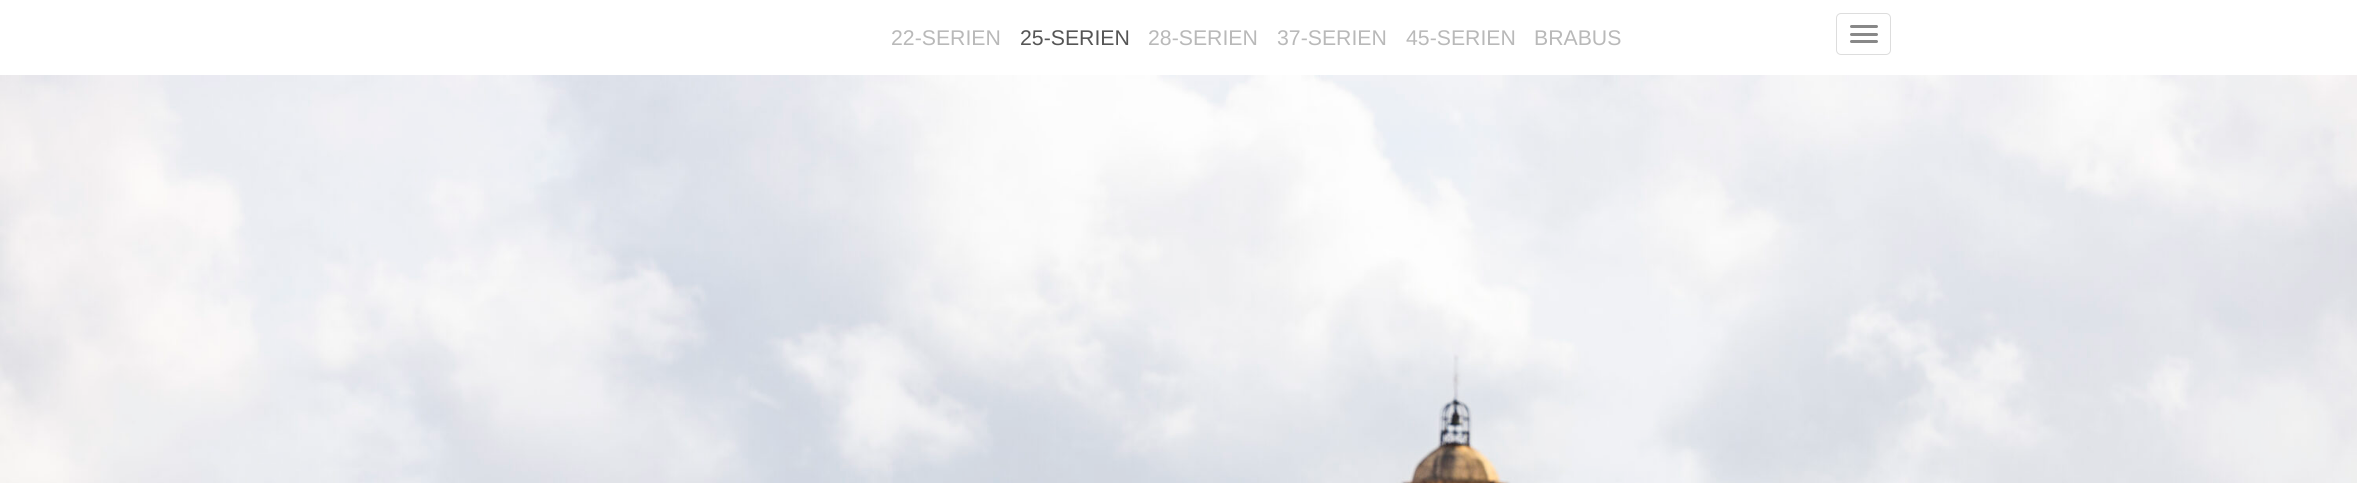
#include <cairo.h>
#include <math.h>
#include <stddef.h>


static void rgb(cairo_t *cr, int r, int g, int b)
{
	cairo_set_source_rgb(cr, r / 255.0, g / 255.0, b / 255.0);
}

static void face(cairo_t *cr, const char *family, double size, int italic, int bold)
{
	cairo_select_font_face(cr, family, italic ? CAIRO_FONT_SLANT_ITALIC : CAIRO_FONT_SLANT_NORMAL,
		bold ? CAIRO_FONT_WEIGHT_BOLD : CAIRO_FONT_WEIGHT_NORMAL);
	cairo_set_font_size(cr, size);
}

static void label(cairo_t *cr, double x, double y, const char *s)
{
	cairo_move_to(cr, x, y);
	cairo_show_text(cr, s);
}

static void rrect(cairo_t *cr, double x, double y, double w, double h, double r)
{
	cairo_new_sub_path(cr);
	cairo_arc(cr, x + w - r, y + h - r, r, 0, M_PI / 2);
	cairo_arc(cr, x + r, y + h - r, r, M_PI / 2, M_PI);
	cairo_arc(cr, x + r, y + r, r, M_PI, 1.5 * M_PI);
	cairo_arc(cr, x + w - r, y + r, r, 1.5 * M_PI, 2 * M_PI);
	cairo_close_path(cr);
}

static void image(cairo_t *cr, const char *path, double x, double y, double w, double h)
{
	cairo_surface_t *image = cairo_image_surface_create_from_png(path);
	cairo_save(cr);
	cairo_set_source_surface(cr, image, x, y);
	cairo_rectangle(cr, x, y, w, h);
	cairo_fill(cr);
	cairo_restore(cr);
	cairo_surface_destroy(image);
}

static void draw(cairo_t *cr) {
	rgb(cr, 255, 255, 255);
	cairo_paint(cr);
	face(cr, "Liberation Sans", 21.25, 0, 0);
	rgb(cr, 185, 185, 185);
	label(cr, 891, 45, "22-SERIEN");
	rgb(cr, 85, 85, 85);
	label(cr, 1020, 45, "25-SERIEN");
	rgb(cr, 185, 185, 185);
	label(cr, 1148, 45, "28-SERIEN");
	label(cr, 1277, 45, "37-SERIEN");
	label(cr, 1406, 45, "45-SERIEN");
	label(cr, 1534, 45, "BRABUS");
	rrect(cr, 1836.5, 13.5, 54, 41, 4.5);
	rgb(cr, 221, 221, 221);
	cairo_set_line_width(cr, 1);
	cairo_stroke(cr);
	rgb(cr, 136, 136, 136);
	rrect(cr, 1850, 25, 28, 3, 1.5);
	cairo_fill(cr);
	rrect(cr, 1850, 33, 28, 3, 1.5);
	cairo_fill(cr);
	rrect(cr, 1850, 40, 28, 3, 1.5);
	cairo_fill(cr);
	image(cr, "image0.png", 0, 75, 2357, 408);
}

int main(void) {
	cairo_surface_t *surface = cairo_image_surface_create(CAIRO_FORMAT_RGB24, 2357, 483);
	cairo_t *cr = cairo_create(surface);
	cairo_font_options_t *options = cairo_font_options_create();
	cairo_font_options_set_hint_metrics(options, CAIRO_HINT_METRICS_OFF);
	cairo_font_options_set_hint_style(options, CAIRO_HINT_STYLE_NONE);
	cairo_set_font_options(cr, options);
	cairo_set_miter_limit(cr, 4);
	draw(cr);
	cairo_surface_write_to_png(surface, "render.png");
	cairo_font_options_destroy(options);
	cairo_destroy(cr);
	cairo_surface_destroy(surface);
	return 0;
}
